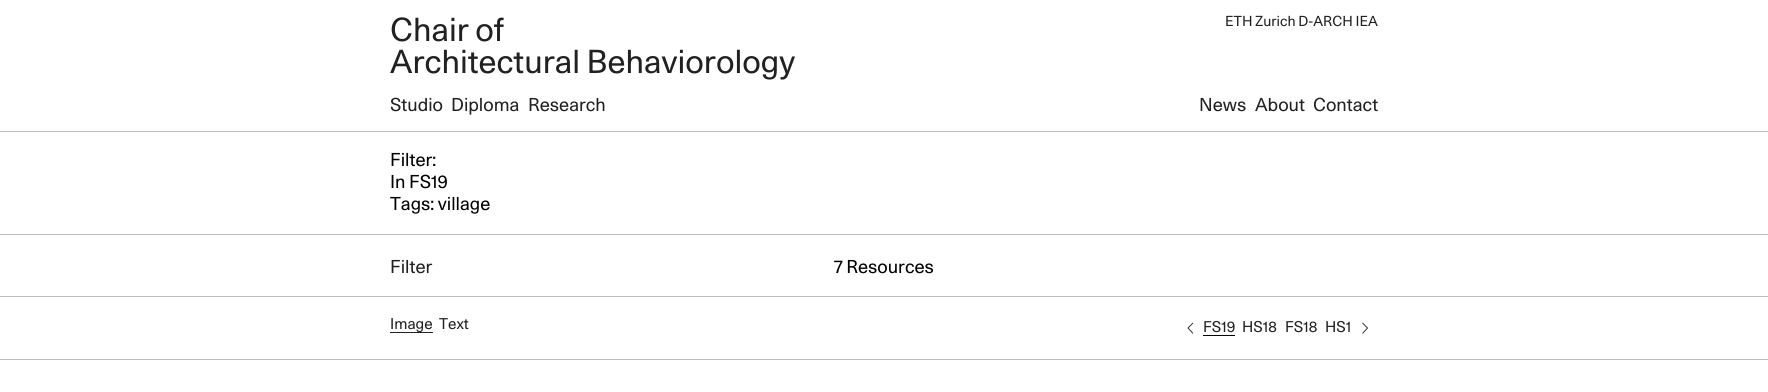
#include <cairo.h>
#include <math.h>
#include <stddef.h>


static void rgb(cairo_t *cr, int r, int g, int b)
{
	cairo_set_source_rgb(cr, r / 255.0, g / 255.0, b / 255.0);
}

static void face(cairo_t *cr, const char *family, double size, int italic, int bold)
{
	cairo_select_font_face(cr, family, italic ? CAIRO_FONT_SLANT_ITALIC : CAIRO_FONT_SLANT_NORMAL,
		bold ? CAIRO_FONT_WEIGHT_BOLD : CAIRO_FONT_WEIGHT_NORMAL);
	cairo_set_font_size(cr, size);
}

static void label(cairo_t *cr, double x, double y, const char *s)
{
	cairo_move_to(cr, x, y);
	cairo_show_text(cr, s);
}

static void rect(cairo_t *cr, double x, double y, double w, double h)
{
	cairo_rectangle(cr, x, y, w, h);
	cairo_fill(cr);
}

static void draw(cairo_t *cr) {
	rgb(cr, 255, 255, 255);
	cairo_paint(cr);
	face(cr, "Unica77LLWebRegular", 32, 0, 0);
	rgb(cr, 33, 33, 33);
	label(cr, 390, 41, "Chair of");
	label(cr, 390, 73, "Architectural Behaviorology");
	face(cr, "Unica77LLWebRegular", 14, 0, 0);
	label(cr, 1225, 26, "ETH Zurich D-ARCH IEA");
	rgb(cr, 189, 189, 189);
	rect(cr, 0, 131, 1768, 1);
	face(cr, "Unica77LLWebRegular", 18, 0, 0);
	rgb(cr, 33, 33, 33);
	label(cr, 390, 111, "Studio");
	label(cr, 451, 111, "Diploma");
	label(cr, 528, 111, "Research");
	label(cr, 1199, 111, "News");
	label(cr, 1255, 111, "About");
	label(cr, 1313, 111, "Contact");
	rgb(cr, 189, 189, 189);
	rect(cr, 0, 234, 1768, 1);
	rgb(cr, 0, 0, 0);
	label(cr, 390, 166, "Filter:");
	label(cr, 390, 188, "In FS19");
	label(cr, 390, 210, "Tags: village");
	rgb(cr, 189, 189, 189);
	rect(cr, 0, 296, 1768, 1);
	rgb(cr, 33, 33, 33);
	label(cr, 390, 273, "Filter");
	rgb(cr, 0, 0, 0);
	label(cr, 834, 273, "7 Resources");
	rgb(cr, 189, 189, 189);
	rect(cr, 0, 359, 1768, 1);
	rgb(cr, 33, 33, 33);
	rect(cr, 390, 332, 43, 1);
	face(cr, "Unica77LLWebRegular", 15, 0, 0);
	label(cr, 390, 329, "Image");
	label(cr, 439, 329, "Text");
	cairo_new_path(cr);
	cairo_move_to(cr, 1193, 323);
	cairo_line_to(cr, 1188, 328);
	cairo_line_to(cr, 1193, 333.5);
	cairo_set_line_width(cr, 0.9);
	cairo_stroke(cr);
	label(cr, 1203, 332, "FS19");
	rgb(cr, 0, 0, 0);
	rect(cr, 1203, 335, 32, 1);
	rgb(cr, 33, 33, 33);
	label(cr, 1242, 332, "HS18");
	label(cr, 1285, 332, "FS18");
	label(cr, 1325, 332, "HS1");
	cairo_new_path(cr);
	cairo_move_to(cr, 1362.5, 333.5);
	cairo_line_to(cr, 1367.5, 328);
	cairo_line_to(cr, 1362.5, 323);
	cairo_stroke(cr);
}

int main(void) {
	cairo_surface_t *surface = cairo_image_surface_create(CAIRO_FORMAT_RGB24, 1768, 392);
	cairo_t *cr = cairo_create(surface);
	cairo_font_options_t *options = cairo_font_options_create();
	cairo_font_options_set_hint_metrics(options, CAIRO_HINT_METRICS_OFF);
	cairo_font_options_set_hint_style(options, CAIRO_HINT_STYLE_NONE);
	cairo_set_font_options(cr, options);
	cairo_set_miter_limit(cr, 4);
	draw(cr);
	cairo_surface_write_to_png(surface, "render.png");
	cairo_font_options_destroy(options);
	cairo_destroy(cr);
	cairo_surface_destroy(surface);
	return 0;
}
